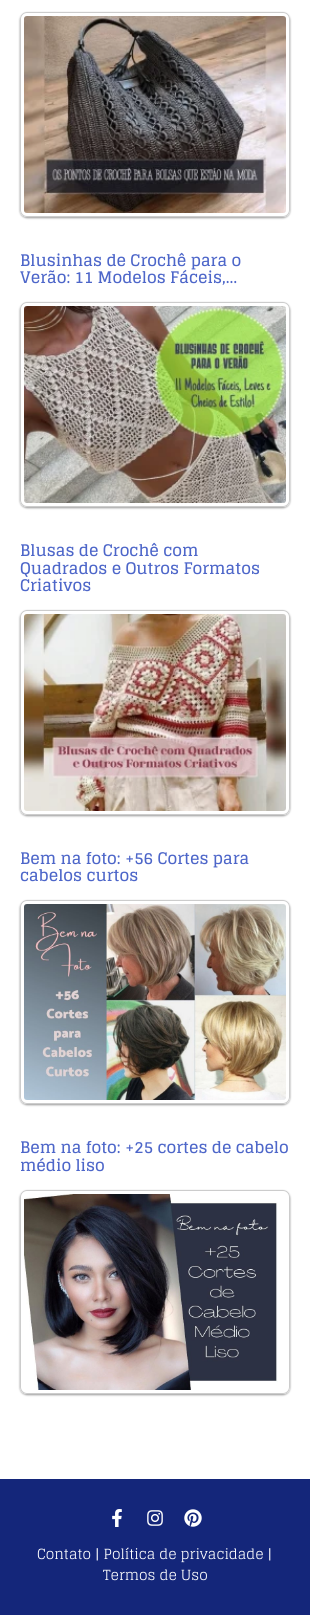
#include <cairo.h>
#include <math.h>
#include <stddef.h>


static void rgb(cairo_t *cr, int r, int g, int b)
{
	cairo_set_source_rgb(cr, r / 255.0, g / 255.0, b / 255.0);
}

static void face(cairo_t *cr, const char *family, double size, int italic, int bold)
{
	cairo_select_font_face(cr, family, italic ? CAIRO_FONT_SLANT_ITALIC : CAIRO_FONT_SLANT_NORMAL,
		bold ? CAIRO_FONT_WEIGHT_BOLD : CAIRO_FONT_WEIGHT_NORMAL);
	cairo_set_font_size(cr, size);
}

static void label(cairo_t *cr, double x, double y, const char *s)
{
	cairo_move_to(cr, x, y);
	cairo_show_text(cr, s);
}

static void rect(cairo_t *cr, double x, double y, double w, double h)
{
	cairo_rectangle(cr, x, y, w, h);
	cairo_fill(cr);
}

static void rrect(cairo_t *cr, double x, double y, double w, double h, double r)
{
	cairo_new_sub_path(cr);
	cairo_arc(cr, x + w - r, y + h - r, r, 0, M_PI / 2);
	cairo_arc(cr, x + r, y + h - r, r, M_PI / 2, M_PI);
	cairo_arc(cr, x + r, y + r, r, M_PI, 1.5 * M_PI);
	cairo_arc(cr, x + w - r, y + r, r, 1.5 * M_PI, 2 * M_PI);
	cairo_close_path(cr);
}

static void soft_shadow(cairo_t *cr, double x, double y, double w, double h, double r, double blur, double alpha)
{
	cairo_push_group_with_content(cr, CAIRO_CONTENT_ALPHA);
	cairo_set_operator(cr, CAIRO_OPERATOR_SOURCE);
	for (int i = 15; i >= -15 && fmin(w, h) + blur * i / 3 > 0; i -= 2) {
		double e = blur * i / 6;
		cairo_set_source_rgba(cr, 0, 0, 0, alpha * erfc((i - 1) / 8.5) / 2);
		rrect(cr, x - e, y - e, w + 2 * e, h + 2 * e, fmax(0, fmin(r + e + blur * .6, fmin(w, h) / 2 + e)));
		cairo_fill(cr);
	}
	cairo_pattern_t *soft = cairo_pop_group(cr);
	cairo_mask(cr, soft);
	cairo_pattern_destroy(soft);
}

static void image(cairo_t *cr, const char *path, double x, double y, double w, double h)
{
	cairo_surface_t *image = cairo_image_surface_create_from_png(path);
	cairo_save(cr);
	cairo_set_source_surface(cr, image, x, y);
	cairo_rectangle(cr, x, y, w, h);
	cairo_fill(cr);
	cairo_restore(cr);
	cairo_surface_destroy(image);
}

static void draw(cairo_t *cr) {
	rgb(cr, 255, 255, 255);
	cairo_paint(cr);
	cairo_save(cr);
	cairo_set_fill_rule(cr, CAIRO_FILL_RULE_EVEN_ODD);
	cairo_new_path(cr);
	cairo_move_to(cr, 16, 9);
	cairo_line_to(cr, 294, 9);
	cairo_line_to(cr, 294, 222);
	cairo_line_to(cr, 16, 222);
	cairo_close_path(cr);
	cairo_move_to(cr, 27, 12);
	cairo_line_to(cr, 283, 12);
	cairo_curve_to(cr, 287, 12, 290, 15, 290, 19);
	cairo_line_to(cr, 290, 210);
	cairo_curve_to(cr, 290, 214, 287, 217, 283, 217);
	cairo_line_to(cr, 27, 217);
	cairo_curve_to(cr, 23, 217, 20, 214, 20, 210);
	cairo_line_to(cr, 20, 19);
	cairo_curve_to(cr, 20, 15, 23, 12, 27, 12);
	cairo_close_path(cr);
	cairo_clip(cr);
	rgb(cr, 0, 0, 0);
	soft_shadow(cr, 20, 13, 270, 205, 7, 1, 0.4);
	cairo_restore(cr);
	rrect(cr, 20.5, 12.5, 269, 204, 6.5);
	rgb(cr, 204, 204, 204);
	cairo_set_line_width(cr, 1);
	cairo_stroke(cr);
	image(cr, "image0.png", 24, 16, 262, 197);
	face(cr, "Glegoo", 16, 0, 1);
	rgb(cr, 77, 102, 201);
	label(cr, 20, 266, "Blusinhas de Crochê para o");
	label(cr, 20, 283, "Verão: 11 Modelos Fáceis,…");
	cairo_save(cr);
	cairo_set_fill_rule(cr, CAIRO_FILL_RULE_EVEN_ODD);
	cairo_new_path(cr);
	cairo_move_to(cr, 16, 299);
	cairo_line_to(cr, 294, 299);
	cairo_line_to(cr, 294, 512);
	cairo_line_to(cr, 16, 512);
	cairo_close_path(cr);
	cairo_move_to(cr, 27, 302);
	cairo_line_to(cr, 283, 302);
	cairo_curve_to(cr, 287, 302, 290, 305, 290, 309);
	cairo_line_to(cr, 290, 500);
	cairo_curve_to(cr, 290, 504, 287, 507, 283, 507);
	cairo_line_to(cr, 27, 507);
	cairo_curve_to(cr, 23, 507, 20, 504, 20, 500);
	cairo_line_to(cr, 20, 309);
	cairo_curve_to(cr, 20, 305, 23, 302, 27, 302);
	cairo_close_path(cr);
	cairo_clip(cr);
	rgb(cr, 0, 0, 0);
	soft_shadow(cr, 20, 303, 270, 205, 7, 1, 0.4);
	cairo_restore(cr);
	rrect(cr, 20.5, 302.5, 269, 204, 6.5);
	rgb(cr, 204, 204, 204);
	cairo_stroke(cr);
	image(cr, "image1.png", 24, 306, 262, 197);
	rgb(cr, 77, 102, 201);
	label(cr, 20, 556, "Blusas de Crochê com");
	label(cr, 20, 574, "Quadrados e Outros Formatos");
	label(cr, 20, 591, "Criativos");
	cairo_save(cr);
	cairo_set_fill_rule(cr, CAIRO_FILL_RULE_EVEN_ODD);
	cairo_new_path(cr);
	cairo_move_to(cr, 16, 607);
	cairo_line_to(cr, 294, 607);
	cairo_line_to(cr, 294, 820);
	cairo_line_to(cr, 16, 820);
	cairo_close_path(cr);
	cairo_move_to(cr, 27, 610);
	cairo_line_to(cr, 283, 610);
	cairo_curve_to(cr, 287, 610, 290, 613, 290, 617);
	cairo_line_to(cr, 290, 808);
	cairo_curve_to(cr, 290, 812, 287, 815, 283, 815);
	cairo_line_to(cr, 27, 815);
	cairo_curve_to(cr, 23, 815, 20, 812, 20, 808);
	cairo_line_to(cr, 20, 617);
	cairo_curve_to(cr, 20, 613, 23, 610, 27, 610);
	cairo_close_path(cr);
	cairo_clip(cr);
	rgb(cr, 0, 0, 0);
	soft_shadow(cr, 20, 611, 270, 205, 7, 1, 0.4);
	cairo_restore(cr);
	rrect(cr, 20.5, 610.5, 269, 204, 6.5);
	rgb(cr, 204, 204, 204);
	cairo_stroke(cr);
	image(cr, "image2.png", 24, 614, 262, 197);
	rgb(cr, 77, 102, 201);
	label(cr, 20, 864, "Bem na foto: +56 Cortes para");
	label(cr, 20, 881, "cabelos curtos");
	cairo_save(cr);
	cairo_set_fill_rule(cr, CAIRO_FILL_RULE_EVEN_ODD);
	cairo_new_path(cr);
	cairo_move_to(cr, 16, 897);
	cairo_line_to(cr, 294, 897);
	cairo_line_to(cr, 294, 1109);
	cairo_line_to(cr, 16, 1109);
	cairo_close_path(cr);
	cairo_move_to(cr, 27, 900);
	cairo_line_to(cr, 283, 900);
	cairo_curve_to(cr, 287, 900, 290, 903, 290, 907);
	cairo_line_to(cr, 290, 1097);
	cairo_curve_to(cr, 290, 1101, 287, 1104, 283, 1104);
	cairo_line_to(cr, 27, 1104);
	cairo_curve_to(cr, 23, 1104, 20, 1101, 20, 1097);
	cairo_line_to(cr, 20, 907);
	cairo_curve_to(cr, 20, 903, 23, 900, 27, 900);
	cairo_close_path(cr);
	cairo_clip(cr);
	rgb(cr, 0, 0, 0);
	soft_shadow(cr, 20, 901, 270, 204, 7, 1, 0.4);
	cairo_restore(cr);
	rrect(cr, 20.5, 900.5, 269, 203, 6.5);
	rgb(cr, 204, 204, 204);
	cairo_stroke(cr);
	image(cr, "image3.png", 24, 904, 262, 196);
	rgb(cr, 77, 102, 201);
	label(cr, 20, 1153, "Bem na foto: +25 cortes de cabelo");
	label(cr, 20, 1171, "médio liso");
	cairo_save(cr);
	cairo_set_fill_rule(cr, CAIRO_FILL_RULE_EVEN_ODD);
	cairo_new_path(cr);
	cairo_move_to(cr, 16, 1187);
	cairo_line_to(cr, 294, 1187);
	cairo_line_to(cr, 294, 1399);
	cairo_line_to(cr, 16, 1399);
	cairo_close_path(cr);
	cairo_move_to(cr, 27, 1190);
	cairo_line_to(cr, 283, 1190);
	cairo_curve_to(cr, 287, 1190, 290, 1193, 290, 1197);
	cairo_line_to(cr, 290, 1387);
	cairo_curve_to(cr, 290, 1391, 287, 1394, 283, 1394);
	cairo_line_to(cr, 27, 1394);
	cairo_curve_to(cr, 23, 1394, 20, 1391, 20, 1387);
	cairo_line_to(cr, 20, 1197);
	cairo_curve_to(cr, 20, 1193, 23, 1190, 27, 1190);
	cairo_close_path(cr);
	cairo_clip(cr);
	rgb(cr, 0, 0, 0);
	soft_shadow(cr, 20, 1191, 270, 204, 7, 1, 0.4);
	cairo_restore(cr);
	rrect(cr, 20.5, 1190.5, 269, 203, 6.5);
	rgb(cr, 204, 204, 204);
	cairo_stroke(cr);
	image(cr, "image4.png", 24, 1194, 254, 196);
	rgb(cr, 20, 38, 122);
	rect(cr, 0, 1479, 310, 136);
	image(cr, "image5.png", 112, 1509, 10, 18);
	image(cr, "image6.png", 147, 1510, 16, 16);
	image(cr, "image7.png", 184, 1509, 18, 18);
	face(cr, "Glegoo", 14, 0, 0);
	rgb(cr, 255, 255, 255);
	label(cr, 37, 1559, "Contato | Política de privacidade |");
	label(cr, 103, 1580, "Termos de Uso");
}

int main(void) {
	cairo_surface_t *surface = cairo_image_surface_create(CAIRO_FORMAT_RGB24, 310, 1615);
	cairo_t *cr = cairo_create(surface);
	cairo_font_options_t *options = cairo_font_options_create();
	cairo_font_options_set_hint_metrics(options, CAIRO_HINT_METRICS_OFF);
	cairo_font_options_set_hint_style(options, CAIRO_HINT_STYLE_NONE);
	cairo_set_font_options(cr, options);
	cairo_set_miter_limit(cr, 4);
	draw(cr);
	cairo_surface_write_to_png(surface, "render.png");
	cairo_font_options_destroy(options);
	cairo_destroy(cr);
	cairo_surface_destroy(surface);
	return 0;
}
